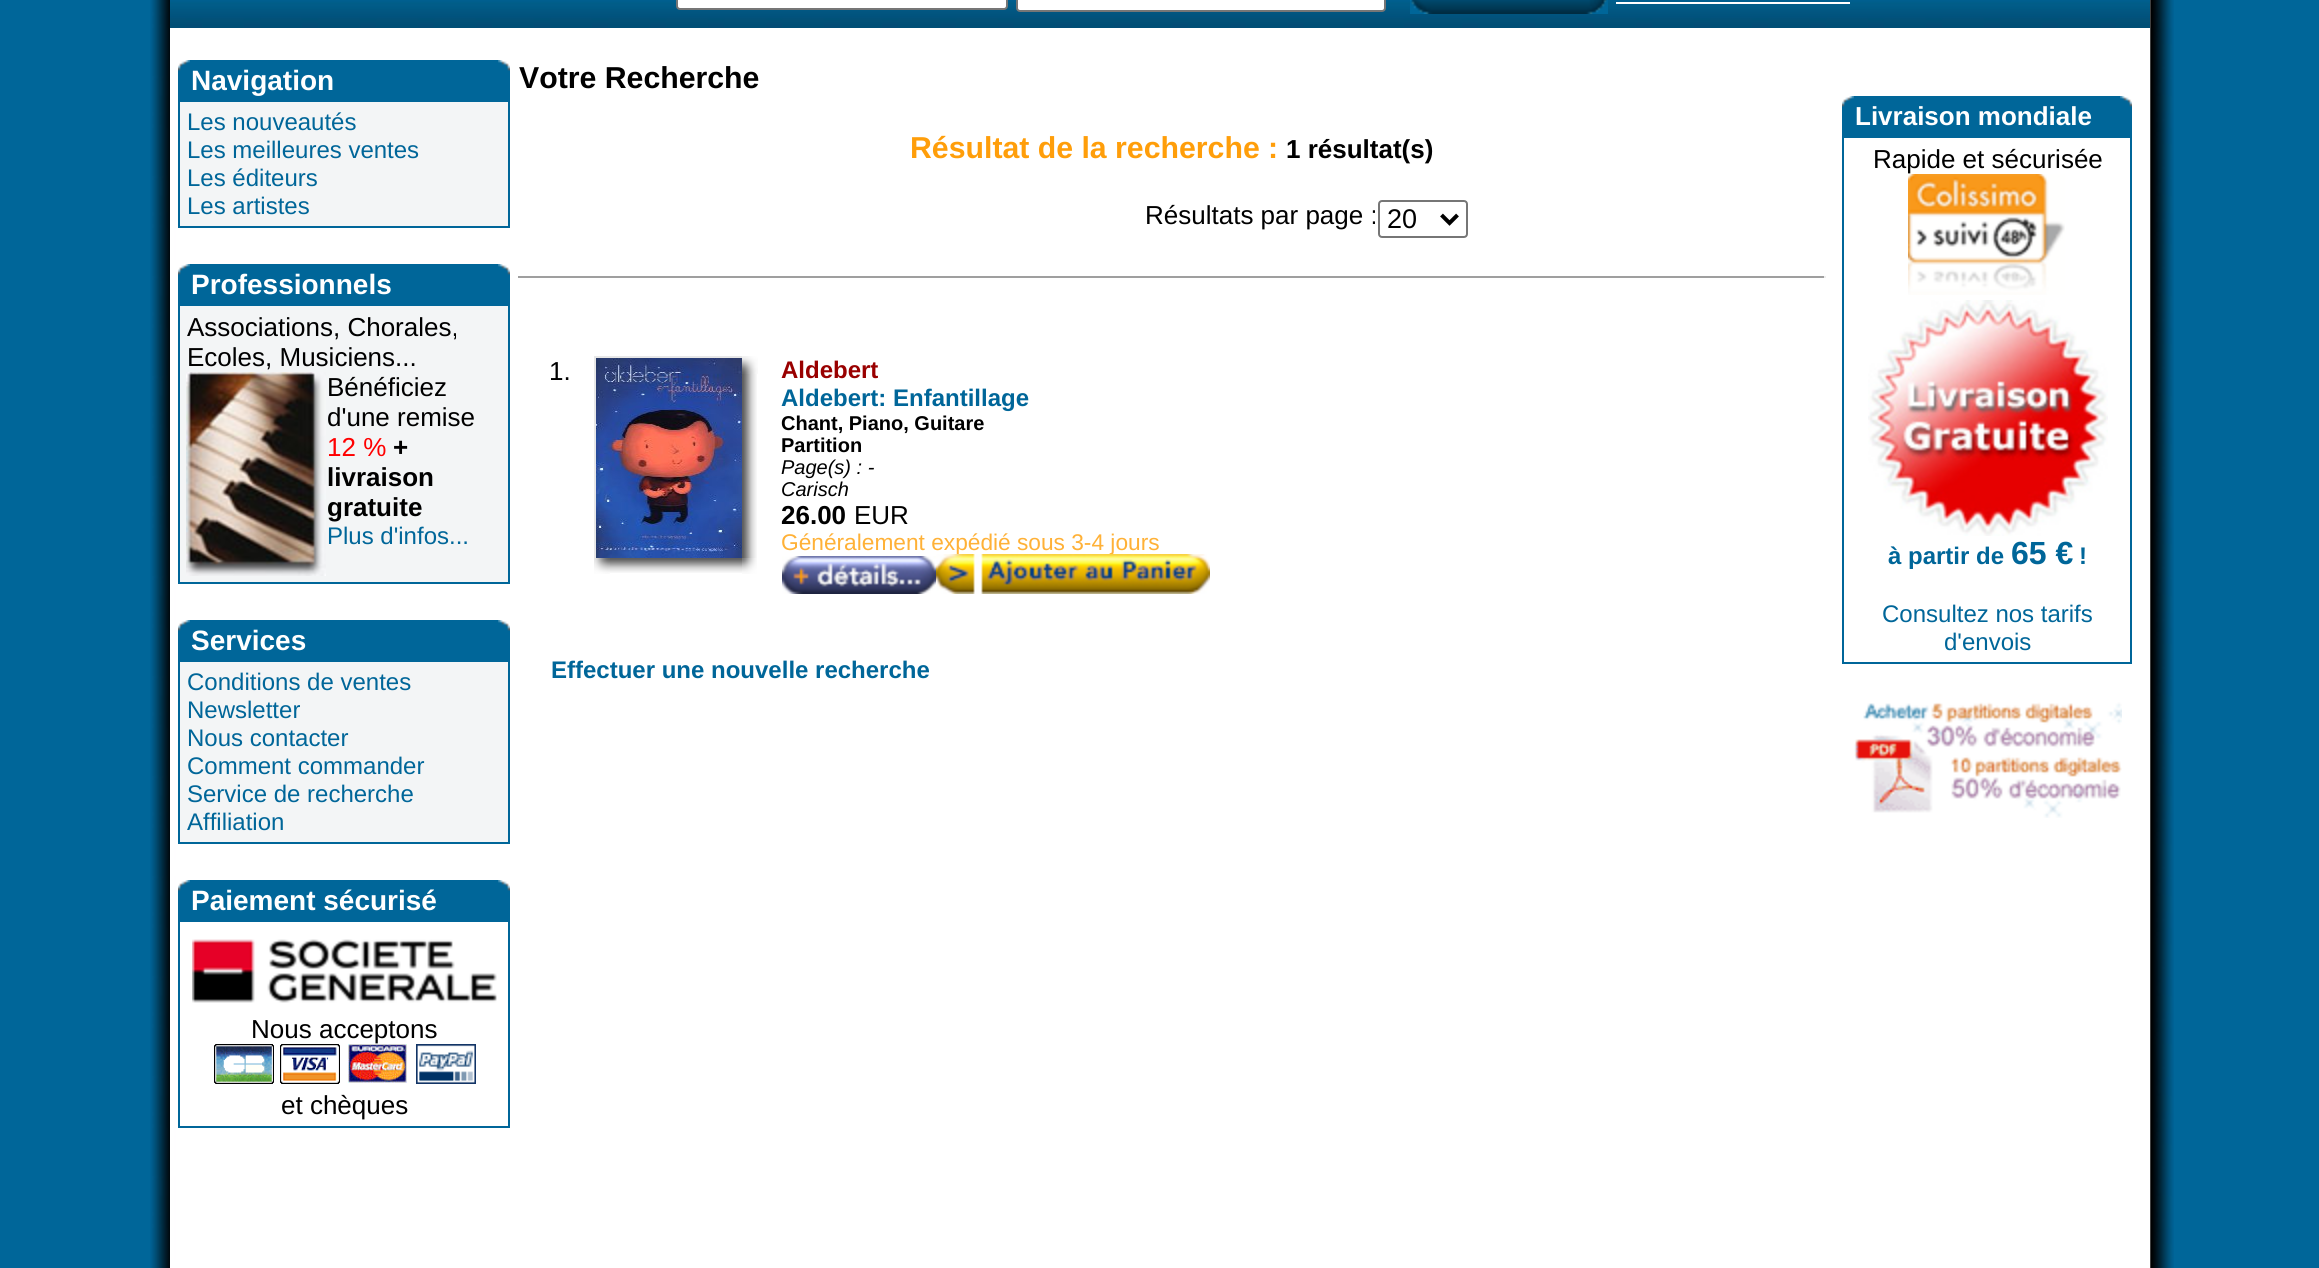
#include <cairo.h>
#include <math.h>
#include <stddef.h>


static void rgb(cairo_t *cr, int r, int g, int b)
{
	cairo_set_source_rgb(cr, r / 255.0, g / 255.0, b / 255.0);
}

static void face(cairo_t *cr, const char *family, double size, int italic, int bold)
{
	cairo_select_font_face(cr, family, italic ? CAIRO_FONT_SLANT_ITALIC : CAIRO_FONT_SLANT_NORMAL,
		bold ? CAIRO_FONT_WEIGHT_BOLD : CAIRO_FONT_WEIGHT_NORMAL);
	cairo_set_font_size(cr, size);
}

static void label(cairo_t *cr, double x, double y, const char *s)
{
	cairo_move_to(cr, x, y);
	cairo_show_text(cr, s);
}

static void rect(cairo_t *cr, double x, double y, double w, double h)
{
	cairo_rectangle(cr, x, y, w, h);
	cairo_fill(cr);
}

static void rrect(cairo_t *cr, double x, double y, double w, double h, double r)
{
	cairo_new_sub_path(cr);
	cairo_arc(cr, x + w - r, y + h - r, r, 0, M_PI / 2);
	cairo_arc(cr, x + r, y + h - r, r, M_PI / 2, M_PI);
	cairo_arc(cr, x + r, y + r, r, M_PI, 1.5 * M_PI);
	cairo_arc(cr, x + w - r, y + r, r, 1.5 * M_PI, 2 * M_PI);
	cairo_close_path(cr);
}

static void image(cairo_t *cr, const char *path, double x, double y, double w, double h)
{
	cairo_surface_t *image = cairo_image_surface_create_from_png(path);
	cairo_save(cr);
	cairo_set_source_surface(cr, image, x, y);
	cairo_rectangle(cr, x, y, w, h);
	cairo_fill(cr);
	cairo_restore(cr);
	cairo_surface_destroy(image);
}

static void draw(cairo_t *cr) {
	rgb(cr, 0, 102, 153);
	cairo_paint(cr);
	image(cr, "image0.png", 150, 0, 2024, 1268);
	rgb(cr, 255, 255, 255);
	rect(cr, 170, 28, 1980, 32);
	image(cr, "image1.png", 170, 0, 1980, 28);
	rrect(cr, 677, -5, 330, 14, 3);
	cairo_fill_preserve(cr);
	rgb(cr, 118, 118, 118);
	cairo_stroke(cr);
	rgb(cr, 255, 255, 255);
	rrect(cr, 1017, -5, 368, 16, 3);
	cairo_fill_preserve(cr);
	rgb(cr, 118, 118, 118);
	cairo_stroke(cr);
	image(cr, "image2.png", 1410, 0, 198, 14);
	rgb(cr, 255, 255, 255);
	rect(cr, 1616, 2, 234, 2);
	rect(cr, 170, 60, 3, 1208);
	rgb(cr, 0, 102, 153);
	rect(cr, 178, 71, 12, 29);
	image(cr, "image3.png", 178, 60, 12, 11);
	rect(cr, 190, 60, 308, 40);
	face(cr, "Liberation Sans", 28, 0, 1);
	rgb(cr, 255, 255, 255);
	label(cr, 191, 90, "Navigation");
	rgb(cr, 0, 102, 153);
	rect(cr, 498, 71, 12, 29);
	image(cr, "image4.png", 498, 60, 12, 11);
	rect(cr, 178, 100, 332, 128);
	rgb(cr, 243, 245, 246);
	rect(cr, 180, 102, 328, 124);
	face(cr, "Liberation Sans", 24, 0, 0);
	rgb(cr, 0, 102, 153);
	label(cr, 187, 130, "Les nouveautés");
	label(cr, 187, 158, "Les meilleures ventes");
	label(cr, 187, 186, "Les éditeurs");
	label(cr, 187, 214, "Les artistes");
	rect(cr, 178, 275, 12, 29);
	image(cr, "image3.png", 178, 264, 12, 11);
	rect(cr, 190, 264, 308, 40);
	face(cr, "Liberation Sans", 28, 0, 1);
	rgb(cr, 255, 255, 255);
	label(cr, 191, 294, "Professionnels");
	rgb(cr, 0, 102, 153);
	rect(cr, 498, 275, 12, 29);
	image(cr, "image4.png", 498, 264, 12, 11);
	rect(cr, 178, 304, 332, 280);
	rgb(cr, 243, 245, 246);
	rect(cr, 180, 306, 328, 276);
	face(cr, "Liberation Sans", 26, 0, 0);
	rgb(cr, 0, 0, 0);
	label(cr, 187, 336, "Associations, Chorales,");
	label(cr, 187, 366, "Ecoles, Musiciens...");
	image(cr, "image5.png", 186, 372, 140, 204);
	label(cr, 327, 396, "Bénéficiez");
	label(cr, 327, 426, "d'une remise");
	rgb(cr, 255, 0, 0);
	label(cr, 327, 456, "12 %");
	face(cr, "Liberation Sans", 26, 0, 1);
	rgb(cr, 0, 0, 0);
	label(cr, 393, 456, "+");
	label(cr, 327, 486, "livraison");
	label(cr, 327, 516, "gratuite");
	face(cr, "Liberation Sans", 24, 0, 0);
	rgb(cr, 0, 102, 153);
	label(cr, 327, 544, "Plus d'infos...");
	rect(cr, 178, 631, 12, 29);
	image(cr, "image3.png", 178, 620, 12, 11);
	rect(cr, 190, 620, 308, 40);
	face(cr, "Liberation Sans", 28, 0, 1);
	rgb(cr, 255, 255, 255);
	label(cr, 191, 650, "Services");
	rgb(cr, 0, 102, 153);
	rect(cr, 498, 631, 12, 29);
	image(cr, "image4.png", 498, 620, 12, 11);
	rect(cr, 178, 660, 332, 184);
	rgb(cr, 243, 245, 246);
	rect(cr, 180, 662, 328, 180);
	face(cr, "Liberation Sans", 24, 0, 0);
	rgb(cr, 0, 102, 153);
	label(cr, 187, 690, "Conditions de ventes");
	label(cr, 187, 718, "Newsletter");
	label(cr, 187, 746, "Nous contacter");
	label(cr, 187, 774, "Comment commander");
	label(cr, 187, 802, "Service de recherche");
	label(cr, 187, 830, "Affiliation");
	rect(cr, 178, 891, 12, 29);
	image(cr, "image3.png", 178, 880, 12, 11);
	rect(cr, 190, 880, 308, 40);
	face(cr, "Liberation Sans", 28, 0, 1);
	rgb(cr, 255, 255, 255);
	label(cr, 191, 910, "Paiement sécurisé");
	rgb(cr, 0, 102, 153);
	rect(cr, 498, 891, 12, 29);
	image(cr, "image4.png", 498, 880, 12, 11);
	rect(cr, 178, 920, 332, 208);
	rgb(cr, 255, 255, 255);
	rect(cr, 180, 922, 328, 204);
	image(cr, "image6.png", 192, 939, 305, 64);
	face(cr, "Liberation Sans", 26, 0, 0);
	rgb(cr, 0, 0, 0);
	label(cr, 251, 1038, "Nous acceptons");
	image(cr, "image7.png", 214, 1044, 60, 40);
	image(cr, "image8.png", 280, 1044, 60, 40);
	image(cr, "image9.png", 348, 1044, 59, 39);
	image(cr, "image10.png", 416, 1044, 60, 40);
	label(cr, 281, 1114, "et chèques");
	face(cr, "Liberation Sans", 30.25, 0, 1);
	label(cr, 519, 88, "Votre Recherche");
	rgb(cr, 255, 158, 10);
	label(cr, 910, 158, "Résultat de la recherche :");
	face(cr, "Liberation Sans", 26, 0, 1);
	rgb(cr, 0, 0, 0);
	label(cr, 1286, 158, "1 résultat(s)");
	face(cr, "Liberation Sans", 26, 0, 0);
	label(cr, 1145, 224, "Résultats par page :");
	rrect(cr, 1379, 201, 88, 36, 3);
	rgb(cr, 118, 118, 118);
	cairo_stroke(cr);
	cairo_new_path(cr);
	cairo_move_to(cr, 1441.5, 215);
	cairo_line_to(cr, 1449.5, 223);
	cairo_line_to(cr, 1457.5, 215);
	rgb(cr, 0, 0, 0);
	cairo_set_line_width(cr, 4);
	cairo_stroke(cr);
	face(cr, "Liberation Sans", 27, 0, 0);
	label(cr, 1387, 228, "20");
	rgb(cr, 159, 159, 159);
	rect(cr, 518, 276, 1308, 2);
	rgb(cr, 238, 238, 238);
	rect(cr, 1824, 276, 2, 2);
	face(cr, "Liberation Sans", 26, 0, 0);
	rgb(cr, 0, 0, 0);
	label(cr, 549, 380, "1.");
	rgb(cr, 231, 231, 231);
	rect(cr, 594, 356, 148, 2);
	rect(cr, 594, 356, 2, 202);
	image(cr, "image11.png", 596, 358, 146, 200);
	image(cr, "image12.png", 742, 374, 15, 184);
	image(cr, "image13.png", 742, 356, 16, 18);
	image(cr, "image14.png", 610, 558, 132, 15);
	image(cr, "image15.png", 594, 558, 16, 16);
	image(cr, "image16.png", 742, 558, 15, 16);
	face(cr, "Liberation Sans", 24, 0, 1);
	rgb(cr, 153, 0, 0);
	label(cr, 781, 378, "Aldebert");
	rgb(cr, 0, 102, 153);
	label(cr, 781, 406, "Aldebert: Enfantillage");
	face(cr, "Liberation Sans", 20, 0, 1);
	rgb(cr, 0, 0, 0);
	label(cr, 781, 430, "Chant, Piano, Guitare");
	label(cr, 781, 452, "Partition");
	face(cr, "Liberation Sans", 20, 1, 0);
	label(cr, 781, 474, "Page(s) : -");
	label(cr, 781, 496, "Carisch");
	face(cr, "Liberation Sans", 26, 0, 1);
	label(cr, 781, 524, "26.00");
	face(cr, "Liberation Sans", 26, 0, 0);
	label(cr, 854, 524, "EUR");
	face(cr, "Liberation Sans", 22.7, 0, 0);
	rgb(cr, 255, 177, 55);
	label(cr, 781, 550, "Généralement expédié sous 3-4 jours");
	image(cr, "image17.png", 782, 556, 154, 38);
	image(cr, "image18.png", 936, 554, 274, 40);
	face(cr, "Liberation Sans", 24, 0, 1);
	rgb(cr, 0, 102, 153);
	label(cr, 551, 678, "Effectuer une nouvelle recherche");
	rgb(cr, 255, 255, 255);
	rect(cr, 2149, 60, 1, 1208);
	rgb(cr, 0, 102, 153);
	rect(cr, 1842, 107, 12, 29);
	image(cr, "image3.png", 1842, 96, 12, 11);
	rect(cr, 1854, 96, 266, 40);
	face(cr, "Liberation Sans", 26, 0, 1);
	rgb(cr, 255, 255, 255);
	label(cr, 1855, 125, "Livraison mondiale");
	rgb(cr, 0, 102, 153);
	rect(cr, 2120, 107, 12, 29);
	image(cr, "image4.png", 2120, 96, 12, 11);
	rect(cr, 1842, 136, 290, 528);
	rgb(cr, 255, 255, 255);
	rect(cr, 1844, 138, 286, 524);
	face(cr, "Liberation Sans", 26, 0, 0);
	rgb(cr, 0, 0, 0);
	label(cr, 1873, 168, "Rapide et sécurisée");
	image(cr, "image19.png", 1908, 174, 157, 121);
	image(cr, "image20.png", 1868, 300, 240, 236);
	face(cr, "Liberation Sans", 24, 0, 1);
	rgb(cr, 0, 102, 153);
	label(cr, 1888, 564, "à partir de");
	face(cr, "Liberation Sans", 32, 0, 1);
	label(cr, 2011, 564, "65 €");
	face(cr, "Liberation Sans", 24, 0, 1);
	label(cr, 2079, 564, "!");
	face(cr, "Liberation Sans", 24, 0, 0);
	label(cr, 1882, 622, "Consultez nos tarifs");
	label(cr, 1944, 650, "d'envois");
	image(cr, "image21.png", 1854, 702, 268, 116);
}

int main(void) {
	cairo_surface_t *surface = cairo_image_surface_create(CAIRO_FORMAT_RGB24, 2319, 1268);
	cairo_t *cr = cairo_create(surface);
	cairo_font_options_t *options = cairo_font_options_create();
	cairo_font_options_set_hint_metrics(options, CAIRO_HINT_METRICS_OFF);
	cairo_font_options_set_hint_style(options, CAIRO_HINT_STYLE_NONE);
	cairo_set_font_options(cr, options);
	cairo_set_miter_limit(cr, 4);
	draw(cr);
	cairo_surface_write_to_png(surface, "render.png");
	cairo_font_options_destroy(options);
	cairo_destroy(cr);
	cairo_surface_destroy(surface);
	return 0;
}
